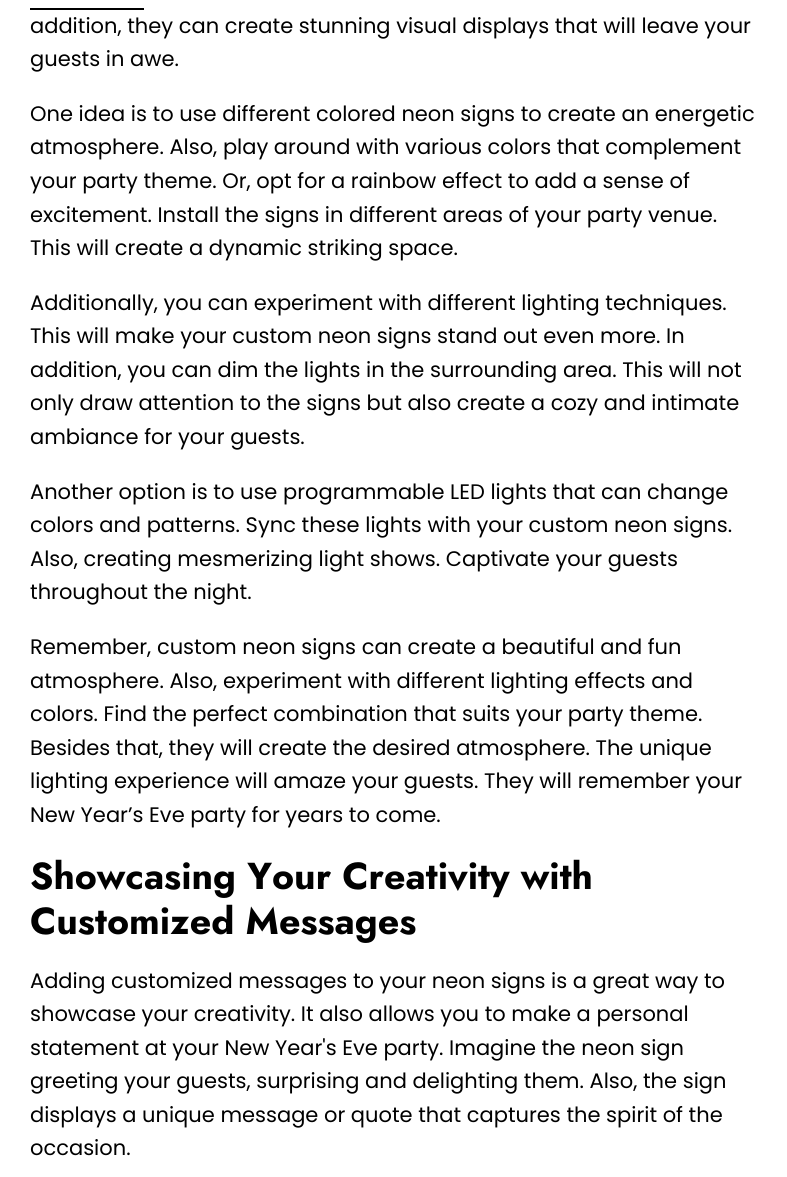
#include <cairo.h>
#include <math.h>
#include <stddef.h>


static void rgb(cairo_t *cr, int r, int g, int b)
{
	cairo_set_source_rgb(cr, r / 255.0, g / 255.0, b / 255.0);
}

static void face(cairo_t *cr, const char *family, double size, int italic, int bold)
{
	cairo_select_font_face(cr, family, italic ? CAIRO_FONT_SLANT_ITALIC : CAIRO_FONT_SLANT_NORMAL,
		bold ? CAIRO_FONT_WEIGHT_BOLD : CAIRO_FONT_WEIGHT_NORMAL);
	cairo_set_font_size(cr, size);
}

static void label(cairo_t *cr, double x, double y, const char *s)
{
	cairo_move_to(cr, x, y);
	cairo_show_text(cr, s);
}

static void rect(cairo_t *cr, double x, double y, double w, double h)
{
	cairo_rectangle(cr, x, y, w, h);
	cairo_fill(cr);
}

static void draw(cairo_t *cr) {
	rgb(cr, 255, 255, 255);
	cairo_paint(cr);
	rgb(cr, 0, 0, 0);
	rect(cr, 30, 8, 114, 2);
	face(cr, "Poppins", 21, 0, 0);
	label(cr, 30, 33, "addition, they can create stunning visual displays that will leave your");
	label(cr, 30, 66, "guests in awe.");
	label(cr, 30, 121, "One idea is to use different colored neon signs to create an energetic");
	label(cr, 30, 154, "atmosphere. Also, play around with various colors that complement");
	label(cr, 30, 188, "your party theme. Or, opt for a rainbow effect to add a sense of");
	label(cr, 30, 222, "excitement. Install the signs in different areas of your party venue.");
	label(cr, 30, 255, "This will create a dynamic striking space.");
	label(cr, 30, 310, "Additionally, you can experiment with different lighting techniques.");
	label(cr, 30, 343, "This will make your custom neon signs stand out even more. In");
	label(cr, 30, 377, "addition, you can dim the lights in the surrounding area. This will not");
	label(cr, 30, 410, "only draw attention to the signs but also create a cozy and intimate");
	label(cr, 30, 444, "ambiance for your guests.");
	label(cr, 30, 499, "Another option is to use programmable LED lights that can change");
	label(cr, 30, 532, "colors and patterns. Sync these lights with your custom neon signs.");
	label(cr, 30, 566, "Also, creating mesmerizing light shows. Captivate your guests");
	label(cr, 30, 599, "throughout the night.");
	label(cr, 30, 654, "Remember, custom neon signs can create a beautiful and fun");
	label(cr, 30, 688, "atmosphere. Also, experiment with different lighting effects and");
	label(cr, 30, 721, "colors. Find the perfect combination that suits your party theme.");
	label(cr, 30, 755, "Besides that, they will create the desired atmosphere. The unique");
	label(cr, 30, 788, "lighting experience will amaze your guests. They will remember your");
	label(cr, 30, 822, "New Year’s Eve party for years to come.");
	face(cr, "Jost", 37.5, 0, 1);
	label(cr, 30, 889, "Showcasing Your Creativity with");
	label(cr, 30, 934, "Customized Messages");
	face(cr, "Poppins", 21, 0, 0);
	label(cr, 30, 988, "Adding customized messages to your neon signs is a great way to");
	label(cr, 30, 1021, "showcase your creativity. It also allows you to make a personal");
	label(cr, 30, 1055, "statement at your New Year's Eve party. Imagine the neon sign");
	label(cr, 30, 1088, "greeting your guests, surprising and delighting them. Also, the sign");
	label(cr, 30, 1122, "displays a unique message or quote that captures the spirit of the");
	label(cr, 30, 1155, "occasion.");
}

int main(void) {
	cairo_surface_t *surface = cairo_image_surface_create(CAIRO_FORMAT_RGB24, 787, 1177);
	cairo_t *cr = cairo_create(surface);
	cairo_font_options_t *options = cairo_font_options_create();
	cairo_font_options_set_hint_metrics(options, CAIRO_HINT_METRICS_OFF);
	cairo_font_options_set_hint_style(options, CAIRO_HINT_STYLE_NONE);
	cairo_set_font_options(cr, options);
	cairo_set_miter_limit(cr, 4);
	draw(cr);
	cairo_surface_write_to_png(surface, "render.png");
	cairo_font_options_destroy(options);
	cairo_destroy(cr);
	cairo_surface_destroy(surface);
	return 0;
}
